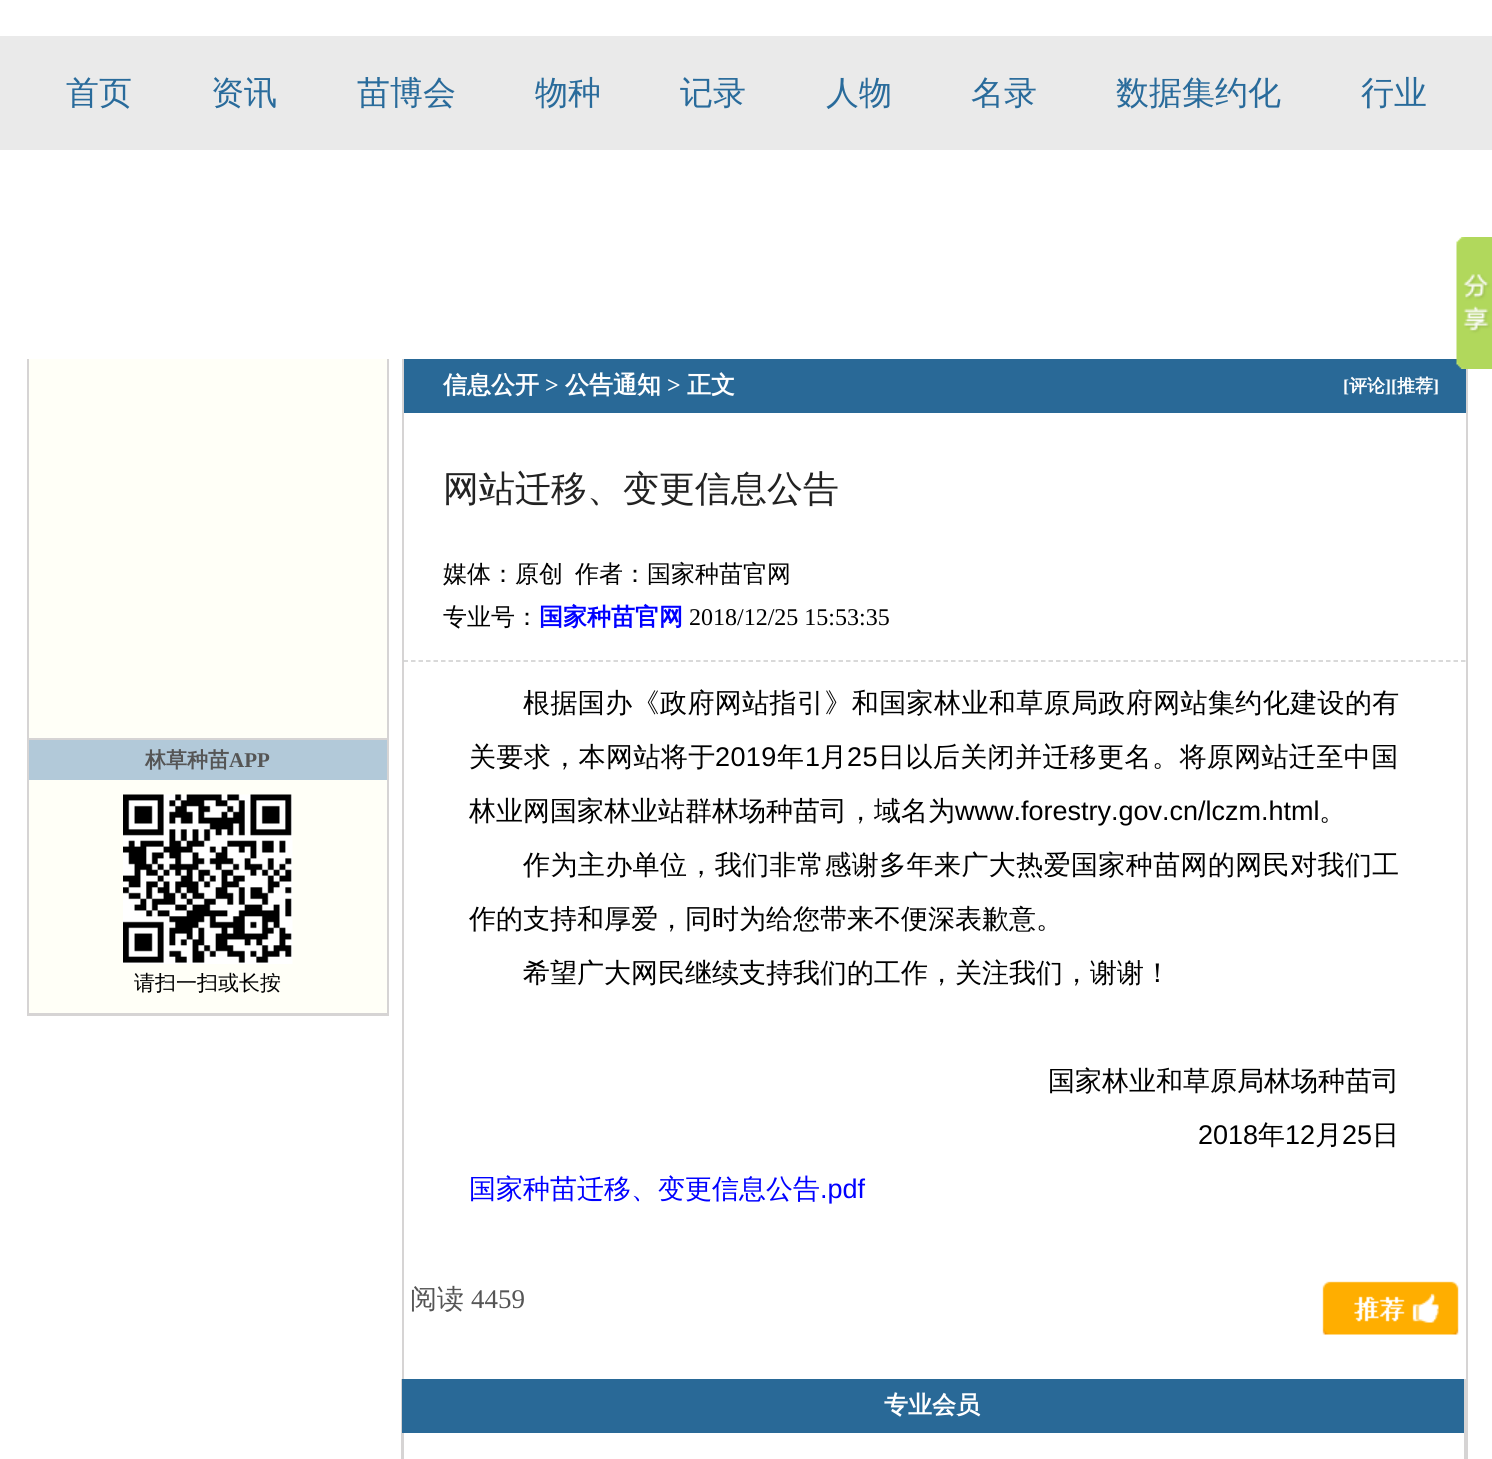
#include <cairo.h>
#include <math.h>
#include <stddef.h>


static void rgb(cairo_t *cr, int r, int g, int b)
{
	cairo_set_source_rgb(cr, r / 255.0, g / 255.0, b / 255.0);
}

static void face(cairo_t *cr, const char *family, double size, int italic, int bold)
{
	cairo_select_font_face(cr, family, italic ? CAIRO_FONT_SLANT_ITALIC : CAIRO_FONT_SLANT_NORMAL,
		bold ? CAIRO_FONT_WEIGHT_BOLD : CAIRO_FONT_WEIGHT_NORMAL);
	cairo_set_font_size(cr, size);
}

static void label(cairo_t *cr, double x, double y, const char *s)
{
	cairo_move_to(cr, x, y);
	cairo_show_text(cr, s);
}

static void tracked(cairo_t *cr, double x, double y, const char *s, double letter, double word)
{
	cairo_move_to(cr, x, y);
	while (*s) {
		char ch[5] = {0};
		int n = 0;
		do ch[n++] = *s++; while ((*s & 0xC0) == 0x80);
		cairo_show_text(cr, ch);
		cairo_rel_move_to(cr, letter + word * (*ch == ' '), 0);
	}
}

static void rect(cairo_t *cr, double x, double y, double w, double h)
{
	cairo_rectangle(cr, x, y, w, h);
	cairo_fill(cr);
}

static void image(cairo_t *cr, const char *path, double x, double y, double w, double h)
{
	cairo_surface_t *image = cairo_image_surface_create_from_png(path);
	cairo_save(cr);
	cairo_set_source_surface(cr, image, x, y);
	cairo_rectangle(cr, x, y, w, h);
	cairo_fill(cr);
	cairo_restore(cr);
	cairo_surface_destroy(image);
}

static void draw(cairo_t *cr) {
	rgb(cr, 255, 255, 255);
	cairo_paint(cr);
	rgb(cr, 234, 234, 234);
	rect(cr, 0, 36, 1492, 114);
	face(cr, "WenQuanYi Zen Hei Medium", 33, 0, 0);
	rgb(cr, 41, 107, 155);
	label(cr, 66, 104, "首页");
	label(cr, 211, 104, "资讯");
	label(cr, 357, 104, "苗博会");
	label(cr, 535, 104, "物种");
	label(cr, 680, 104, "记录");
	label(cr, 826, 104, "人物");
	label(cr, 971, 104, "名录");
	label(cr, 1116, 104, "数据集约化");
	label(cr, 1361, 104, "行业");
	rgb(cr, 41, 105, 151);
	rect(cr, 404, 359, 1062, 54);
	image(cr, "image0.png", 1456, 237, 36, 132);
	rgb(cr, 255, 255, 247);
	rect(cr, 29, 359, 358, 654);
	rgb(cr, 214, 212, 212);
	rect(cr, 387, 359, 2, 657);
	rect(cr, 27, 1014, 362, 2);
	rect(cr, 27, 359, 2, 657);
	rgb(cr, 178, 201, 217);
	rect(cr, 29, 740, 358, 40);
	rgb(cr, 214, 212, 212);
	rect(cr, 29, 738, 358, 2);
	face(cr, "WenQuanYi Zen Hei", 21, 0, 1);
	rgb(cr, 85, 85, 85);
	label(cr, 145, 767, "林草种苗");
	face(cr, "Liberation Serif", 21, 0, 1);
	label(cr, 229, 767, "APP");
	rgb(cr, 214, 212, 212);
	rect(cr, 29, 1013, 358, 1);
	image(cr, "image1.png", 123, 794, 170, 170);
	face(cr, "WenQuanYi Zen Hei Medium", 21, 0, 0);
	rgb(cr, 0, 0, 0);
	label(cr, 134, 990, "请扫一扫或长按");
	rgb(cr, 214, 212, 212);
	rect(cr, 1466, 369, 2, 1090);
	rect(cr, 402, 359, 2, 1100);
	face(cr, "WenQuanYi Zen Hei", 24, 0, 1);
	rgb(cr, 255, 255, 255);
	label(cr, 443, 393, "信息公开");
	face(cr, "Liberation Serif", 24, 0, 1);
	label(cr, 545, 393, ">");
	face(cr, "WenQuanYi Zen Hei", 24, 0, 1);
	label(cr, 565, 393, "公告通知");
	face(cr, "Liberation Serif", 24, 0, 1);
	label(cr, 667, 393, ">");
	face(cr, "WenQuanYi Zen Hei", 24, 0, 1);
	label(cr, 687, 393, "正文");
	face(cr, "Liberation Serif", 18, 0, 1);
	label(cr, 1343, 392, "[");
	face(cr, "WenQuanYi Zen Hei", 18, 0, 1);
	label(cr, 1349, 392, "评论");
	face(cr, "Liberation Serif", 18, 0, 1);
	label(cr, 1385, 392, "][");
	face(cr, "WenQuanYi Zen Hei", 18, 0, 1);
	label(cr, 1397, 392, "推荐");
	face(cr, "Liberation Serif", 18, 0, 1);
	label(cr, 1433, 392, "]");
	face(cr, "WenQuanYi Zen Hei Medium", 36, 0, 0);
	rgb(cr, 34, 34, 34);
	label(cr, 443, 501, "网站迁移、变更信息公告");
	face(cr, "WenQuanYi Zen Hei Medium", 24, 0, 0);
	rgb(cr, 0, 0, 0);
	label(cr, 443, 582, "媒体：原创");
	label(cr, 575, 582, "作者：国家种苗官网");
	label(cr, 443, 625, "专业号：");
	face(cr, "WenQuanYi Zen Hei", 24, 0, 1);
	rgb(cr, 0, 0, 255);
	label(cr, 539, 625, "国家种苗官网");
	face(cr, "Liberation Serif", 24, 0, 0);
	rgb(cr, 0, 0, 0);
	label(cr, 689, 625, "2018/12/25 15:53:35");
	cairo_new_path(cr);
	cairo_move_to(cr, 403.5, 661);
	cairo_line_to(cr, 1465.5, 661);
	rgb(cr, 204, 204, 204);
	cairo_set_line_width(cr, 1.5);
	cairo_set_dash(cr, (double[]){4.5, 3}, 2, 0);
	cairo_stroke(cr);
	face(cr, "WenQuanYi Zen Hei Medium", 27, 0, 0);
	rgb(cr, 0, 0, 0);
	tracked(cr, 523, 712, "根据国办《政府网站指引》和国家林业和草原局政府网站集约化建设的有", 0.4, 0);
	tracked(cr, 469, 766, "关要求，本网站将于", 0.4, 0);
	face(cr, "Liberation Sans", 27, 0, 0);
	tracked(cr, 715, 766, "2019", 0.4, 0);
	face(cr, "WenQuanYi Zen Hei Medium", 27, 0, 0);
	tracked(cr, 777, 766, "年", 0.4, 0);
	face(cr, "Liberation Sans", 27, 0, 0);
	tracked(cr, 805, 766, "1", 0.4, 0);
	face(cr, "WenQuanYi Zen Hei Medium", 27, 0, 0);
	tracked(cr, 820, 766, "月", 0.4, 0);
	face(cr, "Liberation Sans", 27, 0, 0);
	tracked(cr, 847, 766, "25", 0.4, 0);
	face(cr, "WenQuanYi Zen Hei Medium", 27, 0, 0);
	tracked(cr, 878, 766, "日以后关闭并迁移更名。将原网站迁至中国", 0.4, 0);
	label(cr, 469, 820, "林业网国家林业站群林场种苗司，域名为");
	face(cr, "Liberation Sans", 27, 0, 0);
	label(cr, 955, 820, "www.forestry.gov.cn/lczm.html");
	face(cr, "WenQuanYi Zen Hei Medium", 27, 0, 0);
	label(cr, 1319, 820, "。");
	tracked(cr, 523, 874, "作为主办单位，我们非常感谢多年来广大热爱国家种苗网的网民对我们工", 0.4, 0);
	label(cr, 469, 928, "作的支持和厚爱，同时为给您带来不便深表歉意。");
	label(cr, 523, 982, "希望广大网民继续支持我们的工作，关注我们，谢谢！");
	label(cr, 1048, 1090, "国家林业和草原局林场种苗司");
	face(cr, "Liberation Sans", 27, 0, 0);
	label(cr, 1198, 1144, "2018");
	face(cr, "WenQuanYi Zen Hei Medium", 27, 0, 0);
	label(cr, 1258, 1144, "年");
	face(cr, "Liberation Sans", 27, 0, 0);
	label(cr, 1285, 1144, "12");
	face(cr, "WenQuanYi Zen Hei Medium", 27, 0, 0);
	label(cr, 1315, 1144, "月");
	face(cr, "Liberation Sans", 27, 0, 0);
	label(cr, 1342, 1144, "25");
	face(cr, "WenQuanYi Zen Hei Medium", 27, 0, 0);
	label(cr, 1372, 1144, "日");
	rgb(cr, 0, 0, 255);
	label(cr, 469, 1198, "国家种苗迁移、变更信息公告");
	face(cr, "Liberation Sans", 27, 0, 0);
	label(cr, 820, 1198, ".pdf");
	face(cr, "WenQuanYi Zen Hei Medium", 27, 0, 0);
	rgb(cr, 85, 85, 85);
	label(cr, 410, 1308, "阅读");
	face(cr, "Liberation Serif", 27, 0, 0);
	label(cr, 471, 1308, "4459");
	image(cr, "image2.png", 1322, 1281, 137, 54);
	rgb(cr, 214, 212, 212);
	rect(cr, 1464, 1379, 2, 80);
	rect(cr, 401, 1379, 1, 80);
	rgb(cr, 41, 105, 151);
	rect(cr, 402, 1379, 1062, 54);
	face(cr, "WenQuanYi Zen Hei", 24, 0, 1);
	rgb(cr, 255, 255, 255);
	label(cr, 884, 1413, "专业会员");
}

int main(void) {
	cairo_surface_t *surface = cairo_image_surface_create(CAIRO_FORMAT_RGB24, 1492, 1459);
	cairo_t *cr = cairo_create(surface);
	cairo_font_options_t *options = cairo_font_options_create();
	cairo_font_options_set_hint_metrics(options, CAIRO_HINT_METRICS_OFF);
	cairo_font_options_set_hint_style(options, CAIRO_HINT_STYLE_NONE);
	cairo_set_font_options(cr, options);
	cairo_set_miter_limit(cr, 4);
	draw(cr);
	cairo_surface_write_to_png(surface, "render.png");
	cairo_font_options_destroy(options);
	cairo_destroy(cr);
	cairo_surface_destroy(surface);
	return 0;
}
